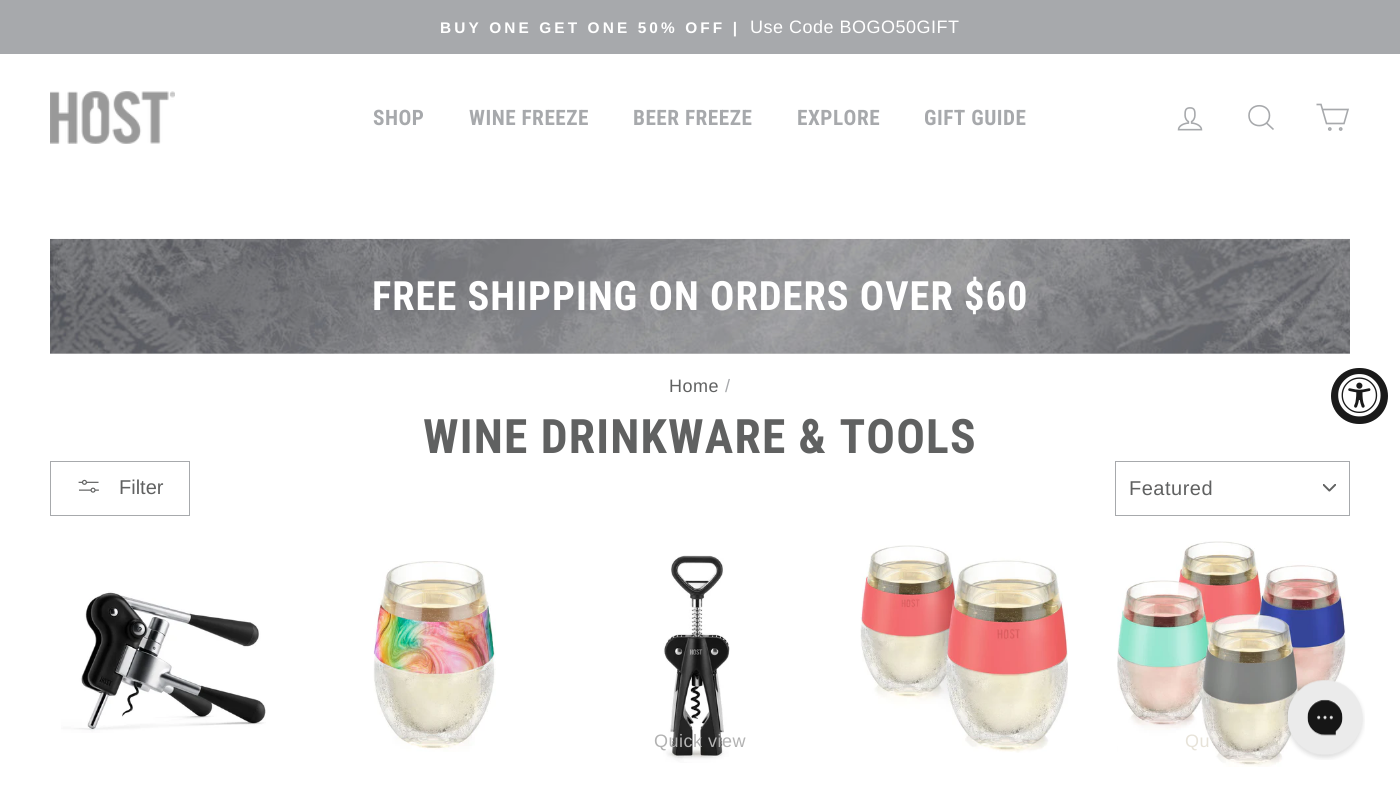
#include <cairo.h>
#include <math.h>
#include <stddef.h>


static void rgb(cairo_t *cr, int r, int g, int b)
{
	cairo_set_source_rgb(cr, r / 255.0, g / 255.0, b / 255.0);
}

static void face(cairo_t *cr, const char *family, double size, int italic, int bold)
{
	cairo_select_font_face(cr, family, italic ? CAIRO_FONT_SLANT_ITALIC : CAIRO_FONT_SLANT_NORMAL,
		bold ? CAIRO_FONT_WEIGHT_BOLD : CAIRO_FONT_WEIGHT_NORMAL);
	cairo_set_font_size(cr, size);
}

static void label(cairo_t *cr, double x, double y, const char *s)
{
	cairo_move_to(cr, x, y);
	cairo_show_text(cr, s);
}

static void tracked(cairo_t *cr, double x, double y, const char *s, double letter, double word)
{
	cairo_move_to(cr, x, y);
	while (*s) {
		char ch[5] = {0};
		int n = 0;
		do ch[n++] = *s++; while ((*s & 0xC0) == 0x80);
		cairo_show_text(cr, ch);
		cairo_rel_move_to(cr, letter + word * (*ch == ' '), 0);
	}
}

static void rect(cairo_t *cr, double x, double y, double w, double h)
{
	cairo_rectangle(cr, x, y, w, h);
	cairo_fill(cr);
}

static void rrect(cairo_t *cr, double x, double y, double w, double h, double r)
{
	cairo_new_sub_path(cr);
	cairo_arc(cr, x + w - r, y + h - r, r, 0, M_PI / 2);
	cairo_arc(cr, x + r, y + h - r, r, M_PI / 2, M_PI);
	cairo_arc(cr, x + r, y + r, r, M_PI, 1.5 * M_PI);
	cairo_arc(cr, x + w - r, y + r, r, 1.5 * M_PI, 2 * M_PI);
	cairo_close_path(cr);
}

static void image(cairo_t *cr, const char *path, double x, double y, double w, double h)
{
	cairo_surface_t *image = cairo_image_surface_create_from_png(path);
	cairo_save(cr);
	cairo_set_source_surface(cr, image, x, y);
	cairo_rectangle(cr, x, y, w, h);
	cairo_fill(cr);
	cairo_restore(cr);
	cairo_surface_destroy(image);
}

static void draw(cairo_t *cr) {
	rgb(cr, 255, 255, 255);
	cairo_paint(cr);
	rgb(cr, 214, 214, 214);
	rect(cr, 50, 353, 1300, 1);
	rgb(cr, 167, 169, 172);
	rect(cr, 0, 0, 1400, 54);
	face(cr, "Liberation Sans", 15.4, 0, 1);
	rgb(cr, 255, 255, 255);
	tracked(cr, 440, 33, "BUY ONE GET ONE 50% OFF |", 3.1, 0);
	face(cr, "Liberation Sans", 18, 0, 0);
	tracked(cr, 750, 33, "Use Code BOGO50GIFT", 0.5, 0);
	image(cr, "image0.png", 50, 91, 125, 53);
	face(cr, "Roboto Condensed", 21.25, 0, 1);
	rgb(cr, 167, 169, 172);
	tracked(cr, 373, 125, "SHOP", 0.5, 0);
	tracked(cr, 469, 125, "WINE FREEZE", 0.5, 0);
	tracked(cr, 633, 125, "BEER FREEZE", 0.5, 0);
	tracked(cr, 797, 125, "EXPLORE", 0.5, 0);
	tracked(cr, 924, 125, "GIFT GUIDE", 0.5, 0);
	image(cr, "image1.png", 1177, 107, 26, 24);
	cairo_new_path(cr);
	cairo_move_to(cr, 1269.5, 115.5);
	cairo_curve_to(cr, 1269.5, 129, 1249, 129, 1249, 115.5);
	cairo_curve_to(cr, 1249, 102.5, 1269.5, 102.5, 1269.5, 115.5);
	cairo_close_path(cr);
	cairo_move_to(cr, 1273.5, 129.5);
	cairo_line_to(cr, 1266.5, 123);
	cairo_set_line_width(cr, 1.6);
	cairo_stroke(cr);
	cairo_new_path(cr);
	cairo_move_to(cr, 1322.5, 109.5);
	cairo_line_to(cr, 1348, 109.5);
	cairo_line_to(cr, 1344, 123.5);
	cairo_line_to(cr, 1326.5, 123.5);
	cairo_line_to(cr, 1321, 104.5);
	cairo_line_to(cr, 1316.5, 104.5);
	cairo_stroke(cr);
	cairo_arc(cr, 1329.8, 129, 1.1, 0, 2 * M_PI);
	cairo_stroke(cr);
	cairo_arc(cr, 1340.7, 129, 1.1, 0, 2 * M_PI);
	cairo_stroke(cr);
	image(cr, "image2.png", 50, 238, 1300, 116);
	face(cr, "Roboto Condensed", 40.4, 0, 1);
	rgb(cr, 255, 255, 255);
	tracked(cr, 372, 310, "FREE SHIPPING ON ORDERS OVER $60", 1, 0);
	face(cr, "Liberation Sans", 18, 0, 0);
	rgb(cr, 96, 97, 97);
	tracked(cr, 669, 392, "Home", 0.5, 0);
	rgb(cr, 167, 169, 172);
	tracked(cr, 725, 392, "/", 0.5, 0);
	face(cr, "Roboto Condensed", 47.5, 0, 1);
	rgb(cr, 96, 97, 97);
	tracked(cr, 423, 453, "WINE DRINKWARE & TOOLS", 1.2, 0);
	cairo_rectangle(cr, 50.5, 461.5, 139, 54);
	rgb(cr, 167, 169, 172);
	cairo_set_line_width(cr, 1);
	cairo_stroke(cr);
	image(cr, "image3.png", 78, 479, 21, 14);
	face(cr, "Liberation Sans", 20, 0, 0);
	rgb(cr, 96, 97, 97);
	label(cr, 119, 494, "Filter");
	image(cr, "image4.png", 1323, 484, 13, 8);
	cairo_rectangle(cr, 1115.5, 461.5, 234, 54);
	rgb(cr, 167, 169, 172);
	cairo_stroke(cr);
	rgb(cr, 96, 97, 97);
	tracked(cr, 1129, 495, "Featured", 0.5, 0);
	image(cr, "image5.png", 61, 591, 205, 142);
	image(cr, "image6.png", 373, 561, 123, 191);
	image(cr, "image7.png", 860, 545, 208, 208);
	image(cr, "image8.png", 663, 555, 67, 208);
	face(cr, "Liberation Sans", 18, 0, 0);
	rgb(cr, 178, 178, 178);
	tracked(cr, 654, 747, "Quick view", 0.5, 0);
	image(cr, "image9.png", 1117, 541, 229, 226);
	rgb(cr, 231, 227, 217);
	tracked(cr, 1185, 747, "Qu", 0.5, 0);
	rgb(cr, 26, 26, 26);
	rrect(cr, 1331, 368, 57, 56, 28);
	cairo_fill(cr);
	image(cr, "image10.png", 1338, 374, 43, 43);
	image(cr, "image11.png", 1285, 680, 80, 80);
}

int main(void) {
	cairo_surface_t *surface = cairo_image_surface_create(CAIRO_FORMAT_RGB24, 1400, 788);
	cairo_t *cr = cairo_create(surface);
	cairo_font_options_t *options = cairo_font_options_create();
	cairo_font_options_set_hint_metrics(options, CAIRO_HINT_METRICS_OFF);
	cairo_font_options_set_hint_style(options, CAIRO_HINT_STYLE_NONE);
	cairo_set_font_options(cr, options);
	cairo_set_miter_limit(cr, 4);
	draw(cr);
	cairo_surface_write_to_png(surface, "render.png");
	cairo_font_options_destroy(options);
	cairo_destroy(cr);
	cairo_surface_destroy(surface);
	return 0;
}
